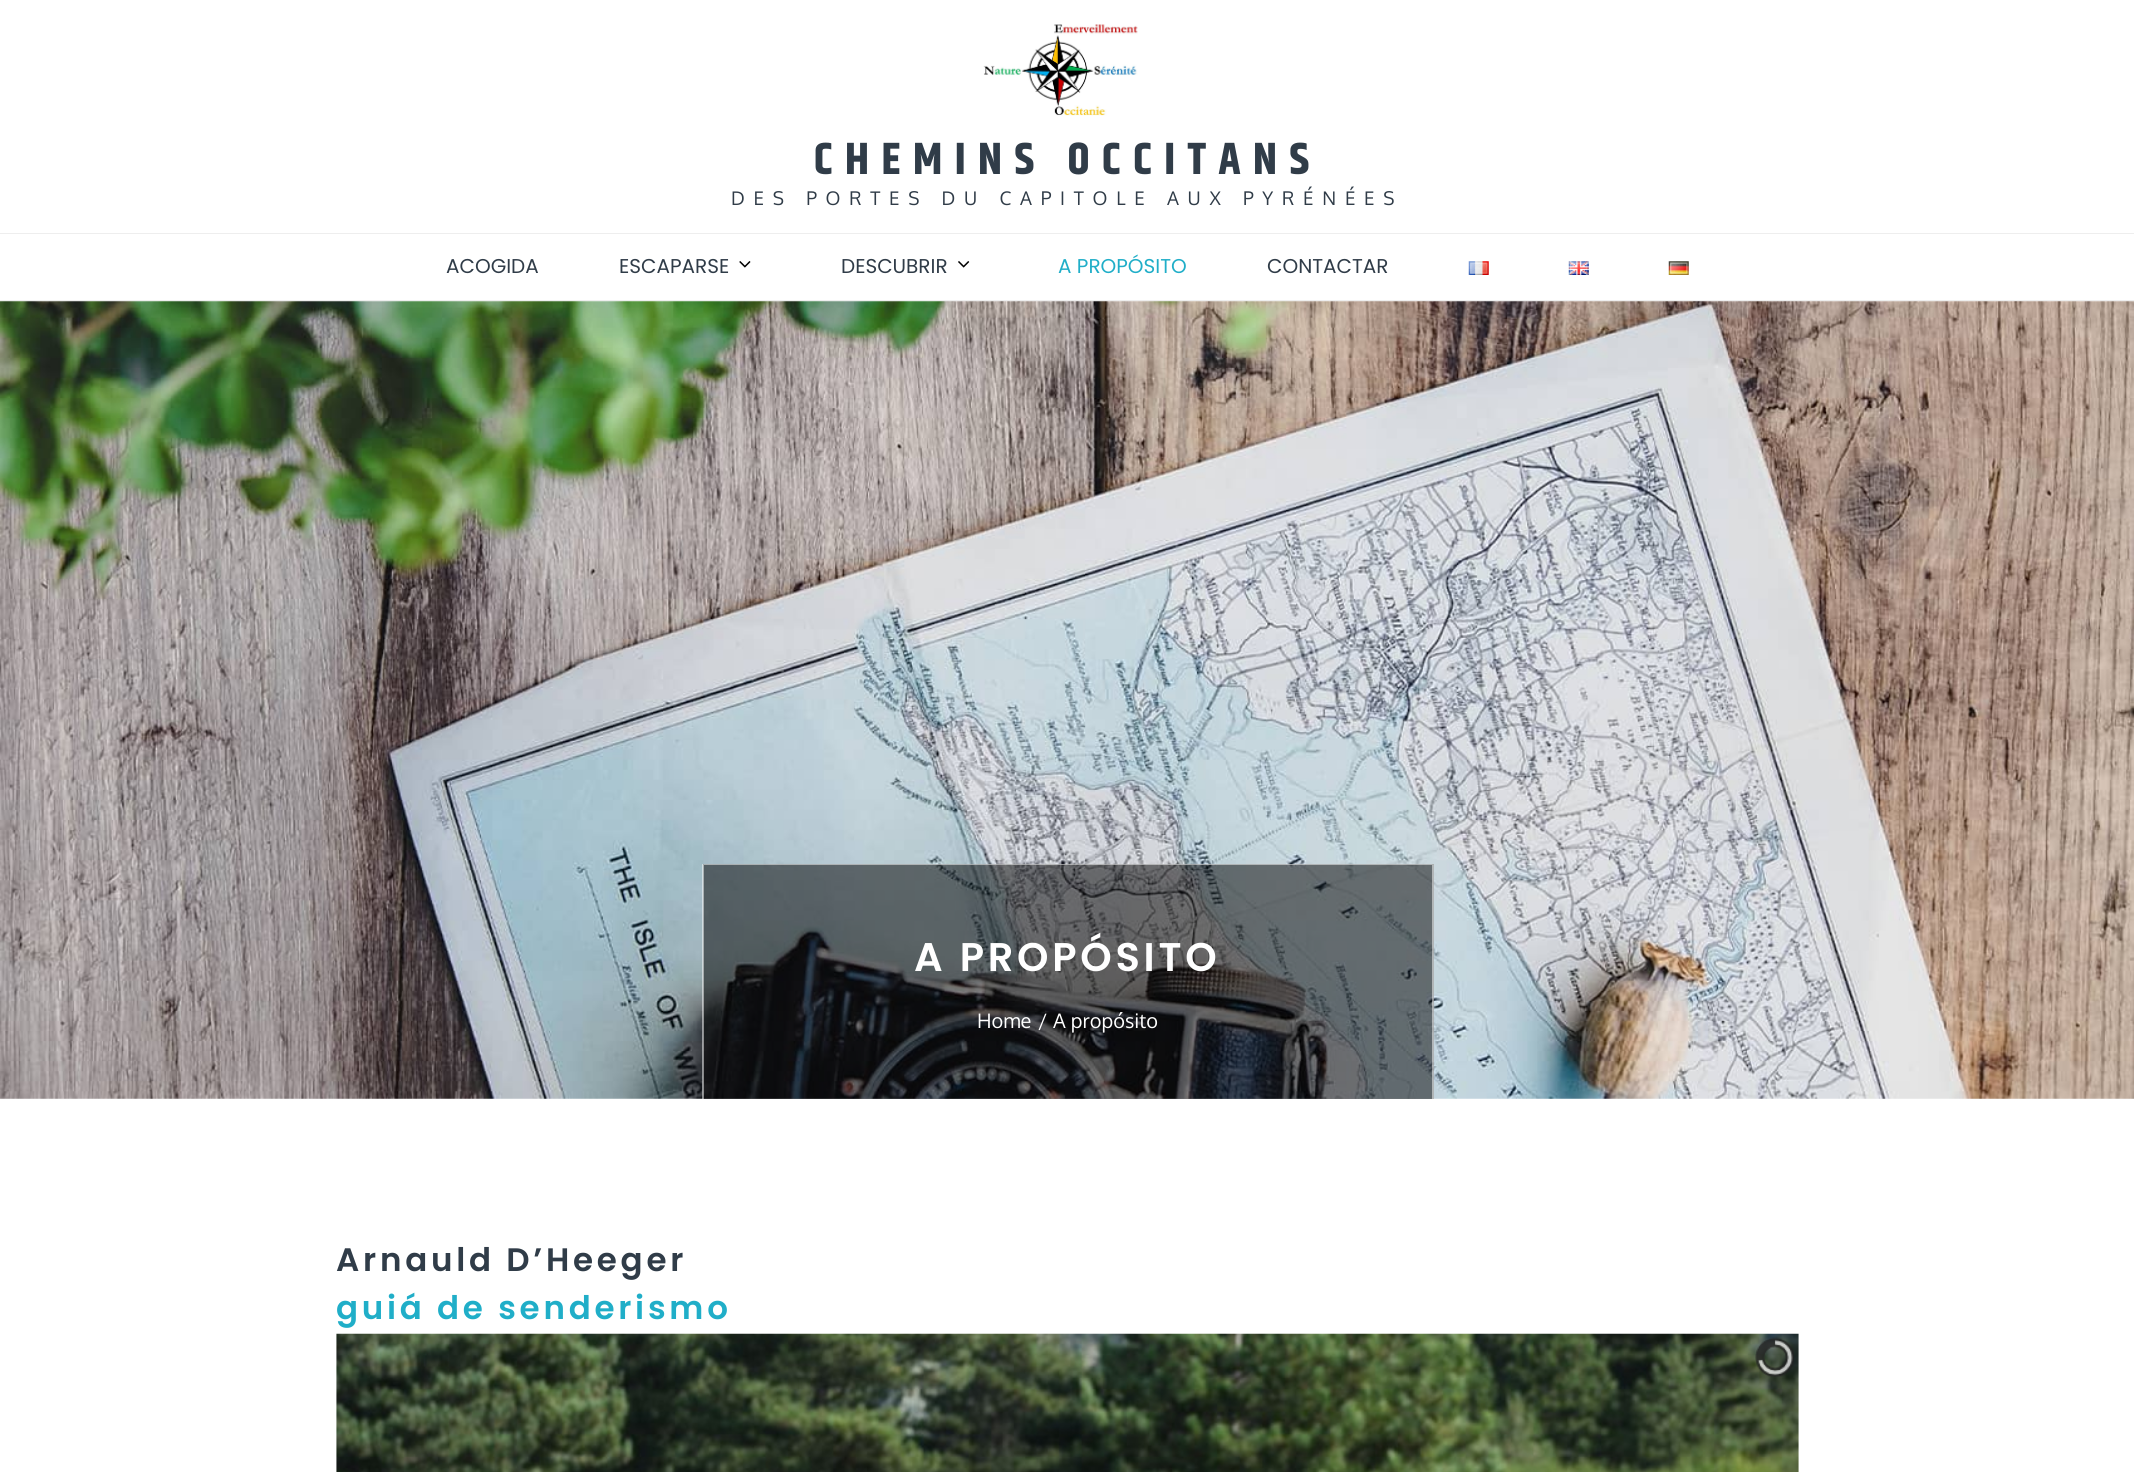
#include <cairo.h>
#include <math.h>
#include <stddef.h>


static void rgb(cairo_t *cr, int r, int g, int b)
{
	cairo_set_source_rgb(cr, r / 255.0, g / 255.0, b / 255.0);
}

static void face(cairo_t *cr, const char *family, double size, int italic, int bold)
{
	cairo_select_font_face(cr, family, italic ? CAIRO_FONT_SLANT_ITALIC : CAIRO_FONT_SLANT_NORMAL,
		bold ? CAIRO_FONT_WEIGHT_BOLD : CAIRO_FONT_WEIGHT_NORMAL);
	cairo_set_font_size(cr, size);
}

static void label(cairo_t *cr, double x, double y, const char *s)
{
	cairo_move_to(cr, x, y);
	cairo_show_text(cr, s);
}

static void tracked(cairo_t *cr, double x, double y, const char *s, double letter, double word)
{
	cairo_move_to(cr, x, y);
	while (*s) {
		char ch[5] = {0};
		int n = 0;
		do ch[n++] = *s++; while ((*s & 0xC0) == 0x80);
		cairo_show_text(cr, ch);
		cairo_rel_move_to(cr, letter + word * (*ch == ' '), 0);
	}
}

static void rect(cairo_t *cr, double x, double y, double w, double h)
{
	cairo_rectangle(cr, x, y, w, h);
	cairo_fill(cr);
}

static void image(cairo_t *cr, const char *path, double x, double y, double w, double h)
{
	cairo_surface_t *image = cairo_image_surface_create_from_png(path);
	cairo_save(cr);
	cairo_set_source_surface(cr, image, x, y);
	cairo_rectangle(cr, x, y, w, h);
	cairo_fill(cr);
	cairo_restore(cr);
	cairo_surface_destroy(image);
}

static void draw(cairo_t *cr) {
	rgb(cr, 255, 255, 255);
	cairo_paint(cr);
	image(cr, "image0.png", 983, 24, 155, 92);
	face(cr, "Khand", 45, 0, 1);
	rgb(cr, 48, 60, 72);
	tracked(cr, 814, 174, "CHEMINS OCCITANS", 12.5, 0);
	face(cr, "Oxygen", 18.75, 0, 0);
	tracked(cr, 731, 205, "DES PORTES DU CAPITOLE AUX PYRÉNÉES", 8.75, 0);
	rgb(cr, 238, 238, 238);
	rect(cr, 0, 233, 2134, 1);
	rect(cr, 0, 300, 2134, 1);
	face(cr, "Poppins", 20, 0, 0);
	rgb(cr, 48, 60, 72);
	label(cr, 446, 273, "ACOGIDA");
	label(cr, 619, 273, "ESCAPARSE");
	image(cr, "image1.png", 739, 261, 12, 7);
	label(cr, 841, 273, "DESCUBRIR");
	image(cr, "image2.png", 958, 261, 12, 7);
	rgb(cr, 32, 174, 200);
	label(cr, 1058, 273, "A PROPÓSITO");
	rgb(cr, 48, 60, 72);
	label(cr, 1267, 273, "CONTACTAR");
	image(cr, "image3.png", 1468, 261, 21, 14);
	image(cr, "image4.png", 1568, 261, 21, 14);
	image(cr, "image5.png", 1668, 261, 21, 14);
	image(cr, "image6.png", 0, 301, 2134, 798);
	cairo_set_source_rgba(cr, 0, 0, 0, 0.5);
	rect(cr, 703, 864, 731, 235);
	cairo_set_source_rgba(cr, 1, 1, 1, 0.5);
	cairo_new_path(cr);
	cairo_move_to(cr, 702, 864);
	cairo_line_to(cr, 1434, 864);
	cairo_line_to(cr, 1432, 865);
	cairo_line_to(cr, 704, 865);
	cairo_close_path(cr);
	cairo_fill(cr);
	cairo_new_path(cr);
	cairo_move_to(cr, 1434, 864);
	cairo_line_to(cr, 1434, 1099);
	cairo_line_to(cr, 1432, 1099);
	cairo_line_to(cr, 1432, 865);
	cairo_close_path(cr);
	cairo_fill(cr);
	cairo_new_path(cr);
	cairo_move_to(cr, 702, 1099);
	cairo_line_to(cr, 702, 864);
	cairo_line_to(cr, 704, 865);
	cairo_line_to(cr, 704, 1099);
	cairo_close_path(cr);
	cairo_fill(cr);
	face(cr, "Poppins SemiBold", 40, 0, 0);
	rgb(cr, 255, 255, 255);
	tracked(cr, 914, 971, "A PROPÓSITO", 3.75, 0);
	face(cr, "Oxygen", 20, 0, 0);
	label(cr, 977, 1028, "Home");
	label(cr, 1038, 1028, "/");
	label(cr, 1053, 1028, "A propósito");
	face(cr, "Poppins SemiBold", 32.5, 0, 0);
	rgb(cr, 48, 60, 72);
	tracked(cr, 336, 1271, "Arnauld D’Heeger", 3.75, 0);
	rgb(cr, 32, 174, 200);
	tracked(cr, 336, 1319, "guiá de senderismo", 3.75, 0);
	image(cr, "image7.png", 336, 1333, 1463, 139);
	image(cr, "image8.png", 1755, 1337, 39, 41);
}

int main(void) {
	cairo_surface_t *surface = cairo_image_surface_create(CAIRO_FORMAT_RGB24, 2134, 1472);
	cairo_t *cr = cairo_create(surface);
	cairo_font_options_t *options = cairo_font_options_create();
	cairo_font_options_set_hint_metrics(options, CAIRO_HINT_METRICS_OFF);
	cairo_font_options_set_hint_style(options, CAIRO_HINT_STYLE_NONE);
	cairo_set_font_options(cr, options);
	cairo_set_miter_limit(cr, 4);
	draw(cr);
	cairo_surface_write_to_png(surface, "render.png");
	cairo_font_options_destroy(options);
	cairo_destroy(cr);
	cairo_surface_destroy(surface);
	return 0;
}
